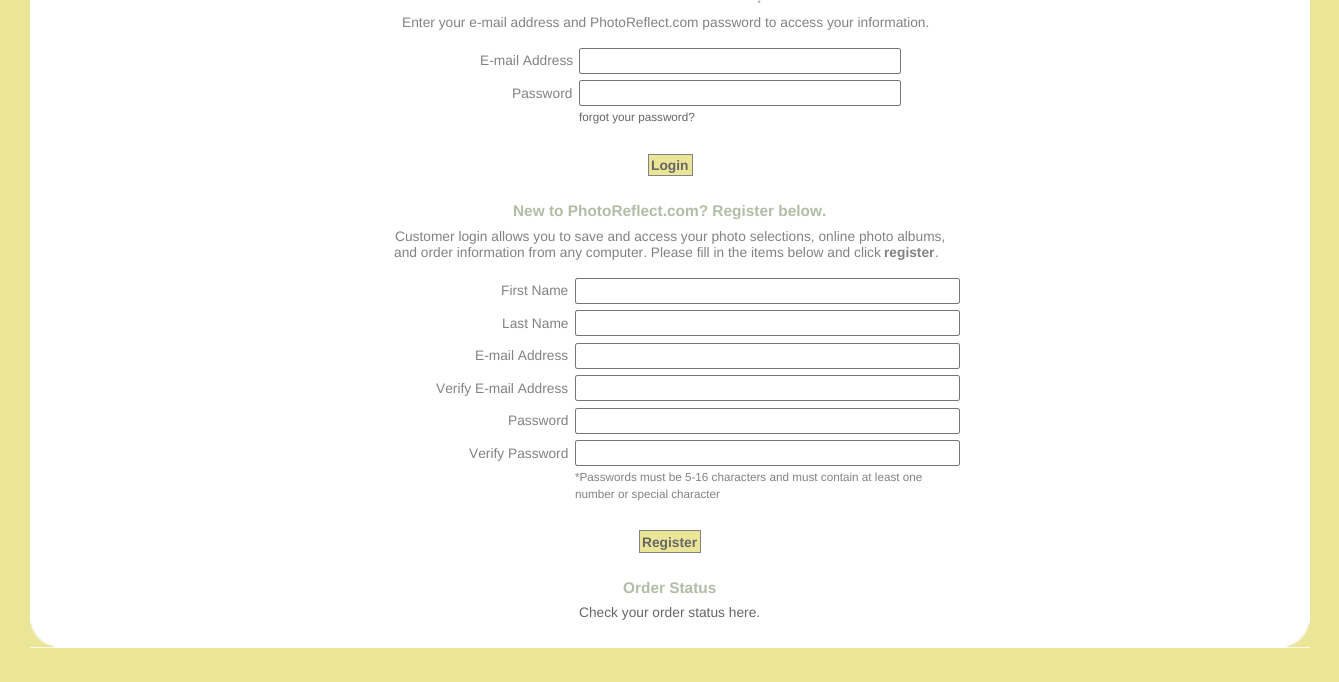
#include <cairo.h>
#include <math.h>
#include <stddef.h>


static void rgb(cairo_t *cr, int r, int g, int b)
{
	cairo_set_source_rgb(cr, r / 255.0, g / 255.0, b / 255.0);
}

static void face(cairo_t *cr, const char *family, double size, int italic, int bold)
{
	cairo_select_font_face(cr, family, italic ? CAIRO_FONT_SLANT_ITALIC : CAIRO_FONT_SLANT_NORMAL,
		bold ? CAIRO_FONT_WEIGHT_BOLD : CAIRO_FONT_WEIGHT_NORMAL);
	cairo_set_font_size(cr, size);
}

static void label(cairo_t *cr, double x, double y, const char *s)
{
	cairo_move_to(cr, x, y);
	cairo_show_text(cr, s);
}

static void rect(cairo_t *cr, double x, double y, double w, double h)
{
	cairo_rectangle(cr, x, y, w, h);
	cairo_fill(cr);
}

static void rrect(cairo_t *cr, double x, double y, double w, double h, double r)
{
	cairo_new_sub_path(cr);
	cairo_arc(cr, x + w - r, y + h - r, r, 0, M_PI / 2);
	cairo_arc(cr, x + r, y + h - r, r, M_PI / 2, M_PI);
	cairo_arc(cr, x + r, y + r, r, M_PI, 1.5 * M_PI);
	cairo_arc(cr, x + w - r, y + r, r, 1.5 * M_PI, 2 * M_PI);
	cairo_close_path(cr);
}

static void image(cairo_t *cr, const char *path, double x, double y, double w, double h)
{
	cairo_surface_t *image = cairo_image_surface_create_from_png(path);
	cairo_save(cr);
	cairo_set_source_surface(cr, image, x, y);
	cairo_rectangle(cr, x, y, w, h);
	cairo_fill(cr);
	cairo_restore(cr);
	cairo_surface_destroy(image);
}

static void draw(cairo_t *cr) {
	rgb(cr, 235, 229, 151);
	cairo_paint(cr);
	rgb(cr, 255, 255, 255);
	rect(cr, 30, 0, 1280, 621);
	face(cr, "Liberation Sans", 15.4, 0, 1);
	rgb(cr, 177, 189, 165);
	label(cr, 757, 3, ".");
	face(cr, "Liberation Sans", 13.75, 0, 0);
	rgb(cr, 128, 130, 133);
	label(cr, 402, 27, "Enter your e-mail address and PhotoReflect.com password to access your information.");
	label(cr, 480, 65, "E-mail Address");
	rrect(cr, 579.5, 48.5, 321, 25, 2);
	rgb(cr, 118, 118, 118);
	cairo_set_line_width(cr, 1);
	cairo_stroke(cr);
	rgb(cr, 128, 130, 133);
	label(cr, 512, 98, "Password");
	rrect(cr, 579.5, 80.5, 321, 25, 2);
	rgb(cr, 118, 118, 118);
	cairo_stroke(cr);
	face(cr, "Liberation Sans", 11.7, 0, 0);
	rgb(cr, 102, 102, 102);
	label(cr, 579, 121, "forgot your password?");
	rgb(cr, 235, 229, 151);
	cairo_rectangle(cr, 648.5, 154.5, 44, 21);
	cairo_fill_preserve(cr);
	rgb(cr, 128, 130, 133);
	cairo_stroke(cr);
	face(cr, "Liberation Sans", 13.75, 0, 1);
	rgb(cr, 102, 102, 102);
	label(cr, 651, 170, "Login");
	face(cr, "Liberation Sans", 15.4, 0, 1);
	rgb(cr, 177, 189, 165);
	label(cr, 513, 216, "New to PhotoReflect.com? Register below.");
	face(cr, "Liberation Sans", 13.75, 0, 0);
	rgb(cr, 128, 130, 133);
	label(cr, 395, 241, "Customer login allows you to save and access your photo selections, online photo albums,");
	label(cr, 394, 257, "and order information from any computer. Please fill in the items below and click");
	face(cr, "Liberation Sans", 13.75, 0, 1);
	label(cr, 884, 257, "register");
	face(cr, "Liberation Sans", 13.75, 0, 0);
	label(cr, 935, 257, ".");
	label(cr, 501, 295, "First Name");
	rrect(cr, 575.5, 278.5, 384, 25, 2);
	rgb(cr, 118, 118, 118);
	cairo_stroke(cr);
	rgb(cr, 128, 130, 133);
	label(cr, 502, 328, "Last Name");
	rrect(cr, 575.5, 310.5, 384, 25, 2);
	rgb(cr, 118, 118, 118);
	cairo_stroke(cr);
	rgb(cr, 128, 130, 133);
	label(cr, 475, 360, "E-mail Address");
	rrect(cr, 575.5, 343.5, 384, 25, 2);
	rgb(cr, 118, 118, 118);
	cairo_stroke(cr);
	rgb(cr, 128, 130, 133);
	label(cr, 436, 393, "Verify E-mail Address");
	rrect(cr, 575.5, 375.5, 384, 25, 2);
	rgb(cr, 118, 118, 118);
	cairo_stroke(cr);
	rgb(cr, 128, 130, 133);
	label(cr, 508, 425, "Password");
	rrect(cr, 575.5, 408.5, 384, 25, 2);
	rgb(cr, 118, 118, 118);
	cairo_stroke(cr);
	rgb(cr, 128, 130, 133);
	label(cr, 469, 458, "Verify Password");
	rrect(cr, 575.5, 440.5, 384, 25, 2);
	rgb(cr, 118, 118, 118);
	cairo_stroke(cr);
	face(cr, "Liberation Sans", 11.7, 0, 0);
	rgb(cr, 128, 130, 133);
	label(cr, 575, 481, "*Passwords must be 5-16 characters and must contain at least one");
	label(cr, 575, 498, "number or special character");
	rgb(cr, 235, 229, 151);
	cairo_rectangle(cr, 639.5, 530.5, 61, 22);
	cairo_fill_preserve(cr);
	rgb(cr, 128, 130, 133);
	cairo_stroke(cr);
	face(cr, "Liberation Sans", 13.75, 0, 1);
	rgb(cr, 102, 102, 102);
	label(cr, 642, 547, "Register");
	face(cr, "Liberation Sans", 15.4, 0, 1);
	rgb(cr, 177, 189, 165);
	label(cr, 623, 593, "Order Status");
	face(cr, "Liberation Sans", 13.75, 0, 0);
	rgb(cr, 102, 102, 102);
	label(cr, 579, 617, "Check your order status here.");
	rgb(cr, 255, 255, 255);
	rect(cr, 30, 621, 1280, 27);
	image(cr, "image0.png", 30, 621, 25, 27);
	image(cr, "image1.png", 1284, 622, 26, 26);
}

int main(void) {
	cairo_surface_t *surface = cairo_image_surface_create(CAIRO_FORMAT_RGB24, 1339, 682);
	cairo_t *cr = cairo_create(surface);
	cairo_font_options_t *options = cairo_font_options_create();
	cairo_font_options_set_hint_metrics(options, CAIRO_HINT_METRICS_OFF);
	cairo_font_options_set_hint_style(options, CAIRO_HINT_STYLE_NONE);
	cairo_set_font_options(cr, options);
	cairo_set_miter_limit(cr, 4);
	draw(cr);
	cairo_surface_write_to_png(surface, "render.png");
	cairo_font_options_destroy(options);
	cairo_destroy(cr);
	cairo_surface_destroy(surface);
	return 0;
}
